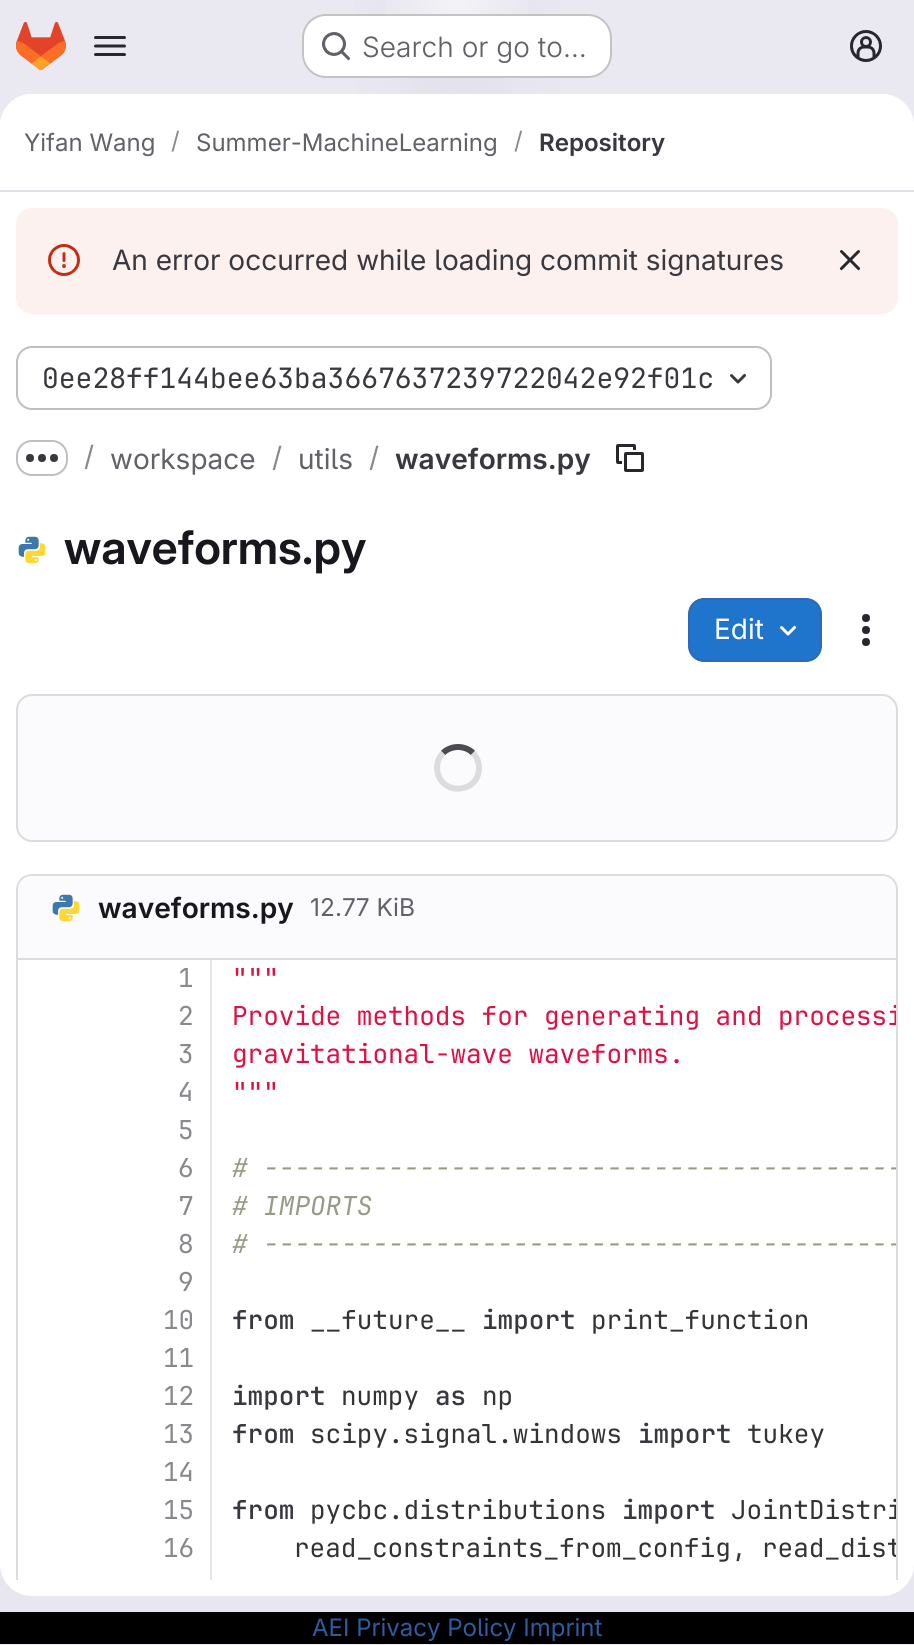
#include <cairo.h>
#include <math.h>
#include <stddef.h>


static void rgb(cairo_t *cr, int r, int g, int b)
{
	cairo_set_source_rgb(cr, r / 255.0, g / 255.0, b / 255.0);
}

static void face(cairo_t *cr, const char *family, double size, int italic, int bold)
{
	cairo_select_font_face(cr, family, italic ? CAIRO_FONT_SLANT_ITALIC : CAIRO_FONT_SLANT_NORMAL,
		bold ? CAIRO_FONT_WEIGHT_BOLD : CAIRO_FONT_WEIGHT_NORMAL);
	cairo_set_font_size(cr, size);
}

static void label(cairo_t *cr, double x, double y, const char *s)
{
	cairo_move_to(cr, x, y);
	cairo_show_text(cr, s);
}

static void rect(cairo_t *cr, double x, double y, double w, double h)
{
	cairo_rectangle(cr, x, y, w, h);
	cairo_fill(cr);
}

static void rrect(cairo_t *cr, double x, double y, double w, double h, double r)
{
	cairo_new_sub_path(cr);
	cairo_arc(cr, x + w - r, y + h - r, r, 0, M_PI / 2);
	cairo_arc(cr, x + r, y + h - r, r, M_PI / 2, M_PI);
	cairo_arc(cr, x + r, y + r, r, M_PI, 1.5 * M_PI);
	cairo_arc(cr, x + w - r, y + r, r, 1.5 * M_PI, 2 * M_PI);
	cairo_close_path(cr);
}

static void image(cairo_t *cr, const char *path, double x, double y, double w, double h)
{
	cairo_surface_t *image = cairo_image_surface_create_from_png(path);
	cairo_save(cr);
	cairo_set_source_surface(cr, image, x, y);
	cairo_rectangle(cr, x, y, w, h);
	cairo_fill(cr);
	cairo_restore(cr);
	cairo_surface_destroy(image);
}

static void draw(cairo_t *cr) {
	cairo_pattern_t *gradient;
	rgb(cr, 255, 255, 255);
	cairo_paint(cr);
	gradient = cairo_pattern_create_linear(612, 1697, 302, -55);
	cairo_pattern_add_color_stop_rgba(gradient, 0, 0.91, 0.902, 0.941, 1);
	cairo_pattern_add_color_stop_rgba(gradient, 0.7, 0.918, 0.914, 0.949, 1);
	cairo_set_source(cr, gradient);
	cairo_pattern_destroy(gradient);
	rect(cr, 0, 0, 914, 1612);
	gradient = cairo_pattern_create_radial(0, 0, 0, 0, 0, 1);
	cairo_pattern_set_matrix(gradient, &(cairo_matrix_t){1.0 / 457, 0, 0, 1.0 / 1646, -1.0 * 457 / 457, -1.0 * -2 / 1646});
	cairo_pattern_add_color_stop_rgba(gradient, 0, 0.894, 0.886, 0.929, 1);
	cairo_pattern_add_color_stop_rgba(gradient, 0.31, 0.894, 0.886, 0.929, 0);
	cairo_set_source(cr, gradient);
	cairo_pattern_destroy(gradient);
	rect(cr, 355, 0, 205, 94);
	gradient = cairo_pattern_create_radial(0, 0, 0, 0, 0, 1);
	cairo_pattern_set_matrix(gradient, &(cairo_matrix_t){1.0 / 457, 0, 0, 1.0 / 1646, -1.0 * 457 / 457, -1.0 * 1644 / 1646});
	cairo_pattern_add_color_stop_rgba(gradient, 0, 0.894, 0.886, 0.929, 1);
	cairo_pattern_add_color_stop_rgba(gradient, 0.31, 0.918, 0.914, 0.949, 1);
	cairo_set_source(cr, gradient);
	cairo_pattern_destroy(gradient);
	rect(cr, 0, 1644, 914, 1);
	gradient = cairo_pattern_create_radial(0, 0, 0, 0, 0, 1);
	cairo_pattern_set_matrix(gradient, &(cairo_matrix_t){1.0 / 457, 0, 0, 1.0 / 1646, -1.0 * 457 / 457, -1.0 * -2 / 1646});
	cairo_pattern_add_color_stop_rgba(gradient, 0, 0.894, 0.886, 0.925, 1);
	cairo_pattern_add_color_stop_rgba(gradient, 0.22, 0.894, 0.886, 0.925, 0);
	cairo_set_source(cr, gradient);
	cairo_pattern_destroy(gradient);
	rect(cr, 409, 11, 96, 83);
	gradient = cairo_pattern_create_radial(457, -2, 0, 457, -2, 1708);
	cairo_pattern_add_color_stop_rgba(gradient, 0, 1, 1, 1, 0.6);
	cairo_pattern_add_color_stop_rgba(gradient, 0.05, 1, 1, 1, 0);
	cairo_set_source(cr, gradient);
	cairo_pattern_destroy(gradient);
	rect(cr, 385, 0, 144, 14);
	gradient = cairo_pattern_create_radial(457, 1644, 0, 457, 1644, 1708);
	cairo_pattern_add_color_stop_rgba(gradient, 0, 1, 1, 1, 0.6);
	cairo_pattern_add_color_stop_rgba(gradient, 0.05, 1, 1, 1, 0);
	cairo_set_source(cr, gradient);
	cairo_pattern_destroy(gradient);
	rect(cr, 386, 1644, 142, 1);
	image(cr, "image0.png", 16, 22, 50, 48);
	image(cr, "image1.png", 94, 36, 32, 20);
	rgb(cr, 255, 255, 255);
	rrect(cr, 302, 14, 310, 64, 24);
	cairo_fill(cr);
	rrect(cr, 303, 15, 308, 62, 23);
	cairo_set_source_rgba(cr, 0.02, 0.02, 0.024, 0.24);
	cairo_stroke(cr);
	image(cr, "image2.png", 322, 32, 29, 29);
	face(cr, "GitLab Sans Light", 28, 0, 0);
	rgb(cr, 98, 97, 104);
	label(cr, 362, 57, "Search or go to…");
	image(cr, "image3.png", 850, 30, 32, 32);
	rgb(cr, 255, 255, 255);
	rrect(cr, 0, 94, 914, 1502, 32);
	cairo_fill(cr);
	cairo_new_path(cr);
	cairo_move_to(cr, 32, 94);
	cairo_line_to(cr, 882, 94);
	cairo_curve_to(cr, 899.5, 94, 914, 108.5, 914, 126);
	cairo_line_to(cr, 914, 192);
	cairo_line_to(cr, 0, 192);
	cairo_line_to(cr, 0, 126);
	cairo_curve_to(cr, 0, 108.5, 14.5, 94, 32, 94);
	cairo_close_path(cr);
	cairo_fill(cr);
	rgb(cr, 225, 223, 236);
	rect(cr, 0, 190, 914, 2);
	face(cr, "GitLab Sans", 24, 0, 0);
	rgb(cr, 98, 97, 104);
	label(cr, 24, 151, "Yifan Wang");
	rgb(cr, 137, 136, 141);
	label(cr, 171, 149, "/");
	rgb(cr, 98, 97, 104);
	label(cr, 196, 151, "Summer-MachineLearning");
	rgb(cr, 137, 136, 141);
	label(cr, 514, 149, "/");
	face(cr, "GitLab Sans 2 SemiBold", 24, 0, 0);
	rgb(cr, 58, 56, 63);
	label(cr, 539, 151, "Repository");
	rgb(cr, 252, 241, 239);
	rrect(cr, 16, 208, 882, 106, 16);
	cairo_fill(cr);
	image(cr, "image4.png", 48, 244, 32, 32);
	face(cr, "GitLab Sans", 28, 0, 0);
	rgb(cr, 58, 56, 63);
	label(cr, 112, 270, "An error occurred while loading commit signatures");
	image(cr, "image5.png", 839, 250, 22, 21);
	rrect(cr, 17, 347, 754, 62, 15);
	rgb(cr, 191, 191, 195);
	cairo_stroke(cr);
	face(cr, "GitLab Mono", 28, 0, 0);
	rgb(cr, 58, 56, 63);
	label(cr, 42, 388, "0ee28ff144bee63ba3667637239722042e92f01c");
	image(cr, "image6.png", 730, 373, 17, 11);
	rrect(cr, 17, 441, 50, 34, 15);
	rgb(cr, 191, 191, 195);
	cairo_stroke(cr);
	image(cr, "image7.png", 26, 454, 32, 8);
	face(cr, "GitLab Sans", 28, 0, 0);
	rgb(cr, 137, 136, 141);
	label(cr, 84, 466, "/");
	rgb(cr, 98, 97, 104);
	label(cr, 110, 469, "workspace");
	rgb(cr, 137, 136, 141);
	label(cr, 272, 467, "/");
	rgb(cr, 98, 97, 104);
	label(cr, 298, 469, "utils");
	rgb(cr, 137, 136, 141);
	label(cr, 369, 467, "/");
	face(cr, "GitLab Sans 2 SemiBold", 28, 0, 0);
	rgb(cr, 58, 56, 63);
	label(cr, 395, 469, "waveforms.py");
	image(cr, "image8.png", 616, 444, 28, 28);
	image(cr, "image9.png", 18, 536, 28, 28);
	face(cr, "GitLab Sans SemiBold", 46, 0, 0);
	rgb(cr, 24, 23, 29);
	label(cr, 64, 564, "waveforms.py");
	rgb(cr, 31, 117, 203);
	rrect(cr, 689, 599, 132, 62, 15);
	cairo_fill_preserve(cr);
	rgb(cr, 47, 104, 180);
	cairo_stroke(cr);
	face(cr, "GitLab Sans", 28, 0, 0);
	rgb(cr, 255, 255, 255);
	label(cr, 714, 639, "Edit");
	image(cr, "image10.png", 780, 625, 17, 11);
	image(cr, "image11.png", 862, 614, 8, 32);
	rgb(cr, 251, 250, 253);
	rrect(cr, 17, 695, 880, 146, 15);
	cairo_fill_preserve(cr);
	rgb(cr, 220, 220, 222);
	cairo_stroke(cr);
	cairo_new_path(cr);
	cairo_move_to(cr, 443, 753);
	cairo_curve_to(cr, 451, 745, 465, 745, 473, 753);
	rgb(cr, 76, 75, 81);
	cairo_set_line_width(cr, 6);
	cairo_stroke(cr);
	cairo_new_path(cr);
	cairo_move_to(cr, 473, 753);
	cairo_curve_to(cr, 477, 757, 479, 762.5, 479, 768);
	cairo_curve_to(cr, 479, 793, 442.5, 796.5, 437.5, 772);
	cairo_curve_to(cr, 436, 765.5, 438, 758, 443, 753);
	rgb(cr, 220, 220, 222);
	cairo_stroke(cr);
	cairo_save(cr);
	cairo_rectangle(cr, 0, 192, 914, 1388);
	cairo_clip(cr);
	cairo_new_path(cr);
	cairo_move_to(cr, 32, 874);
	cairo_curve_to(cr, 23, 874, 16, 881, 16, 890);
	cairo_line_to(cr, 16, 1592);
	cairo_line_to(cr, 18, 1593);
	cairo_line_to(cr, 18, 890);
	cairo_curve_to(cr, 18, 882, 24, 876, 32, 876);
	cairo_line_to(cr, 882, 876);
	cairo_curve_to(cr, 890, 876, 896, 882, 896, 890);
	cairo_line_to(cr, 896, 1593);
	cairo_line_to(cr, 898, 1592);
	cairo_line_to(cr, 898, 890);
	cairo_curve_to(cr, 898, 881, 891, 874, 882, 874);
	cairo_close_path(cr);
	cairo_fill(cr);
	cairo_restore(cr);
	rgb(cr, 251, 250, 253);
	cairo_new_path(cr);
	cairo_move_to(cr, 32, 876);
	cairo_line_to(cr, 882, 876);
	cairo_curve_to(cr, 889.5, 876, 896, 882.5, 896, 890);
	cairo_line_to(cr, 896, 960);
	cairo_line_to(cr, 18, 960);
	cairo_line_to(cr, 18, 890);
	cairo_curve_to(cr, 18, 882.5, 24.5, 876, 32, 876);
	cairo_close_path(cr);
	cairo_fill(cr);
	rgb(cr, 220, 220, 222);
	rect(cr, 18, 958, 878, 2);
	image(cr, "image12.png", 52, 894, 28, 28);
	face(cr, "GitLab Sans 2 SemiBold", 28, 0, 0);
	rgb(cr, 24, 23, 29);
	label(cr, 98, 918, "waveforms.py");
	face(cr, "GitLab Sans", 24.5, 0, 0);
	rgb(cr, 98, 97, 104);
	label(cr, 310, 916, "12.77 KiB");
	face(cr, "GitLab Mono", 26, 0, 0);
	rgb(cr, 137, 136, 141);
	label(cr, 178, 987, "1");
	label(cr, 178, 1025, "2");
	label(cr, 178, 1063, "3");
	label(cr, 178, 1101, "4");
	label(cr, 178, 1139, "5");
	label(cr, 178, 1177, "6");
	label(cr, 178, 1215, "7");
	label(cr, 178, 1253, "8");
	label(cr, 178, 1291, "9");
	label(cr, 163, 1329, "10");
	label(cr, 163, 1367, "11");
	label(cr, 163, 1405, "12");
	label(cr, 163, 1443, "13");
	label(cr, 163, 1481, "14");
	label(cr, 163, 1519, "15");
	label(cr, 163, 1557, "16");
	rgb(cr, 230, 230, 230);
	rect(cr, 210, 960, 2, 620);
	rgb(cr, 221, 17, 68);
	label(cr, 232, 987, "\"\"\"");
	cairo_save(cr);
	cairo_new_path(cr);
	cairo_move_to(cr, 212, 960);
	cairo_line_to(cr, 896, 960);
	cairo_line_to(cr, 896, 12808);
	cairo_curve_to(cr, 896, 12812.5, 892.5, 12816, 888, 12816);
	cairo_line_to(cr, 212, 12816);
	cairo_close_path(cr);
	cairo_clip(cr);
	label(cr, 232, 1025, "Provide methods for generating and processi");
	cairo_restore(cr);
	label(cr, 232, 1063, "gravitational-wave waveforms.");
	label(cr, 232, 1101, "\"\"\"");
	cairo_save(cr);
	cairo_new_path(cr);
	cairo_move_to(cr, 212, 960);
	cairo_line_to(cr, 896, 960);
	cairo_line_to(cr, 896, 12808);
	cairo_curve_to(cr, 896, 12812.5, 892.5, 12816, 888, 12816);
	cairo_line_to(cr, 212, 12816);
	cairo_close_path(cr);
	cairo_clip(cr);
	face(cr, "GitLab Mono", 26, 1, 0);
	rgb(cr, 153, 153, 136);
	label(cr, 232, 1177, "# -----------------------------------------");
	cairo_restore(cr);
	face(cr, "GitLab Mono", 26, 1, 0);
	rgb(cr, 153, 153, 136);
	label(cr, 232, 1215, "# IMPORTS");
	cairo_save(cr);
	cairo_new_path(cr);
	cairo_move_to(cr, 212, 960);
	cairo_line_to(cr, 896, 960);
	cairo_line_to(cr, 896, 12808);
	cairo_curve_to(cr, 896, 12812.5, 892.5, 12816, 888, 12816);
	cairo_line_to(cr, 212, 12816);
	cairo_close_path(cr);
	cairo_clip(cr);
	label(cr, 232, 1253, "# -----------------------------------------");
	cairo_restore(cr);
	face(cr, "GitLab Mono SemiBold", 26, 0, 0);
	rgb(cr, 58, 56, 63);
	label(cr, 232, 1329, "from");
	face(cr, "GitLab Mono", 26, 0, 0);
	rgb(cr, 51, 51, 51);
	label(cr, 310, 1329, "__future__");
	face(cr, "GitLab Mono SemiBold", 26, 0, 0);
	rgb(cr, 58, 56, 63);
	label(cr, 482, 1329, "import");
	face(cr, "GitLab Mono", 26, 0, 0);
	rgb(cr, 51, 51, 51);
	label(cr, 591, 1329, "print_function");
	face(cr, "GitLab Mono SemiBold", 26, 0, 0);
	rgb(cr, 58, 56, 63);
	label(cr, 232, 1405, "import");
	face(cr, "GitLab Mono", 26, 0, 0);
	rgb(cr, 51, 51, 51);
	label(cr, 341, 1405, "numpy");
	face(cr, "GitLab Mono SemiBold", 26, 0, 0);
	rgb(cr, 58, 56, 63);
	label(cr, 435, 1405, "as");
	face(cr, "GitLab Mono", 26, 0, 0);
	rgb(cr, 51, 51, 51);
	label(cr, 482, 1405, "np");
	face(cr, "GitLab Mono SemiBold", 26, 0, 0);
	rgb(cr, 58, 56, 63);
	label(cr, 232, 1443, "from");
	face(cr, "GitLab Mono", 26, 0, 0);
	rgb(cr, 51, 51, 51);
	label(cr, 310, 1443, "scipy.signal.windows");
	face(cr, "GitLab Mono SemiBold", 26, 0, 0);
	rgb(cr, 58, 56, 63);
	label(cr, 638, 1443, "import");
	face(cr, "GitLab Mono", 26, 0, 0);
	rgb(cr, 51, 51, 51);
	label(cr, 747, 1443, "tukey");
	face(cr, "GitLab Mono SemiBold", 26, 0, 0);
	rgb(cr, 58, 56, 63);
	label(cr, 232, 1519, "from");
	face(cr, "GitLab Mono", 26, 0, 0);
	rgb(cr, 51, 51, 51);
	label(cr, 310, 1519, "pycbc.distributions");
	face(cr, "GitLab Mono SemiBold", 26, 0, 0);
	rgb(cr, 58, 56, 63);
	label(cr, 622, 1519, "import");
	cairo_save(cr);
	cairo_new_path(cr);
	cairo_move_to(cr, 212, 960);
	cairo_line_to(cr, 896, 960);
	cairo_line_to(cr, 896, 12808);
	cairo_curve_to(cr, 896, 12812.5, 892.5, 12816, 888, 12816);
	cairo_line_to(cr, 212, 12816);
	cairo_close_path(cr);
	cairo_clip(cr);
	face(cr, "GitLab Mono", 26, 0, 0);
	rgb(cr, 51, 51, 51);
	label(cr, 731, 1519, "JointDistri");
	cairo_restore(cr);
	face(cr, "GitLab Mono", 26, 0, 0);
	rgb(cr, 51, 51, 51);
	label(cr, 294, 1557, "read_constraints_from_config");
	rgb(cr, 58, 56, 63);
	label(cr, 731, 1557, ",");
	cairo_save(cr);
	cairo_new_path(cr);
	cairo_move_to(cr, 212, 960);
	cairo_line_to(cr, 896, 960);
	cairo_line_to(cr, 896, 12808);
	cairo_curve_to(cr, 896, 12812.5, 892.5, 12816, 888, 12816);
	cairo_line_to(cr, 212, 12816);
	cairo_close_path(cr);
	cairo_clip(cr);
	rgb(cr, 51, 51, 51);
	label(cr, 762, 1557, "read_dist");
	cairo_restore(cr);
	rgb(cr, 0, 0, 0);
	rect(cr, 0, 1612, 914, 32);
	face(cr, "GitLab Sans", 24, 0, 0);
	rgb(cr, 47, 92, 160);
	label(cr, 312, 1636, "AEI Privacy Policy Imprint");
}

int main(void) {
	cairo_surface_t *surface = cairo_image_surface_create(CAIRO_FORMAT_RGB24, 914, 1645);
	cairo_t *cr = cairo_create(surface);
	cairo_font_options_t *options = cairo_font_options_create();
	cairo_font_options_set_hint_metrics(options, CAIRO_HINT_METRICS_OFF);
	cairo_font_options_set_hint_style(options, CAIRO_HINT_STYLE_NONE);
	cairo_set_font_options(cr, options);
	cairo_set_miter_limit(cr, 4);
	draw(cr);
	cairo_surface_write_to_png(surface, "render.png");
	cairo_font_options_destroy(options);
	cairo_destroy(cr);
	cairo_surface_destroy(surface);
	return 0;
}
